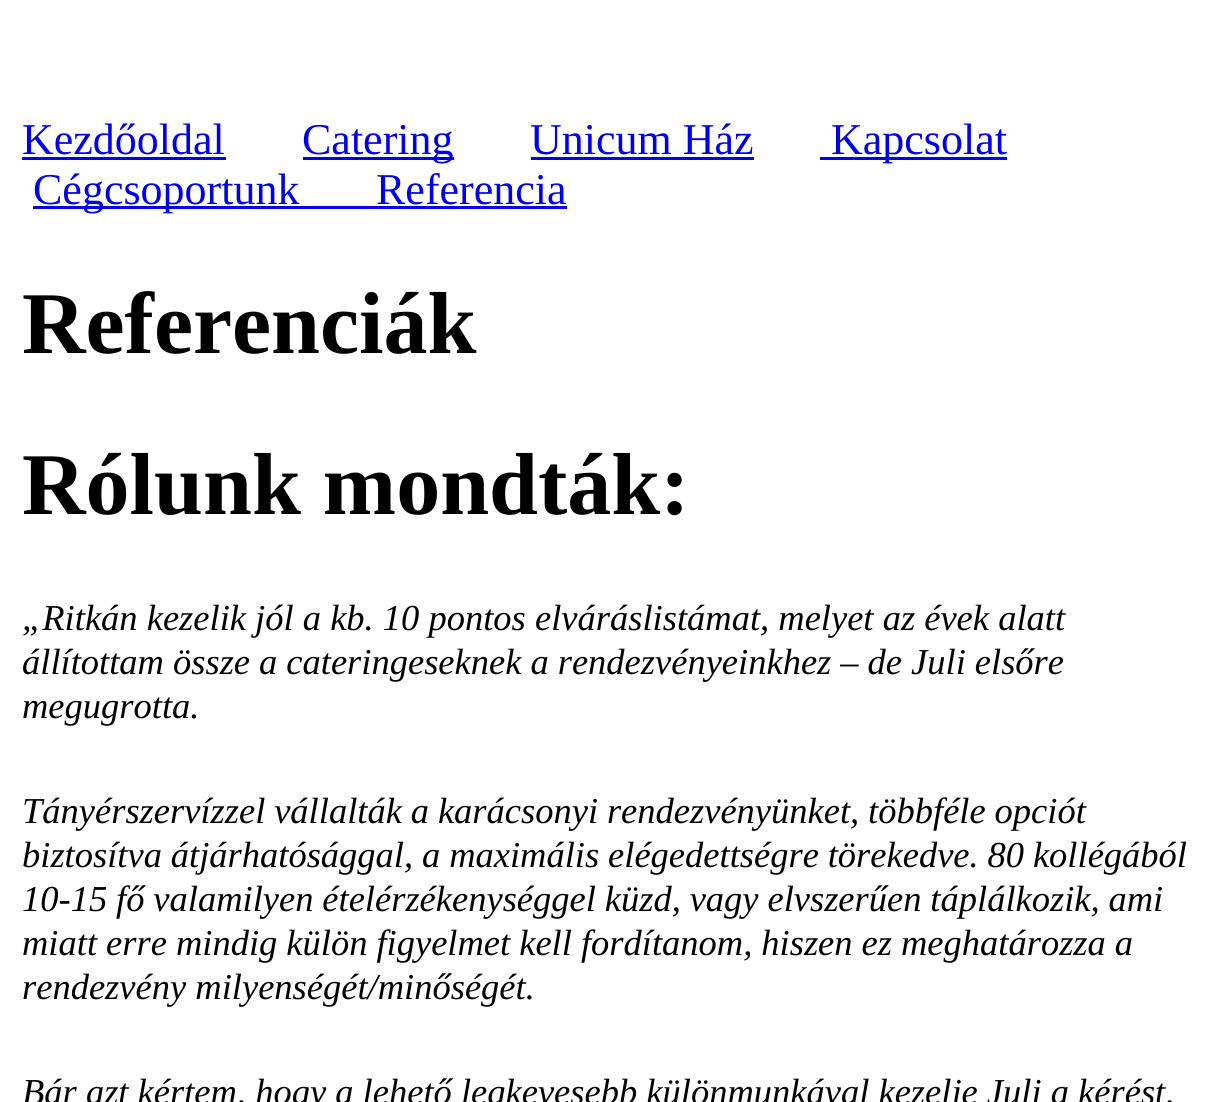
#include <cairo.h>
#include <math.h>
#include <stddef.h>


static void rgb(cairo_t *cr, int r, int g, int b)
{
	cairo_set_source_rgb(cr, r / 255.0, g / 255.0, b / 255.0);
}

static void face(cairo_t *cr, const char *family, double size, int italic, int bold)
{
	cairo_select_font_face(cr, family, italic ? CAIRO_FONT_SLANT_ITALIC : CAIRO_FONT_SLANT_NORMAL,
		bold ? CAIRO_FONT_WEIGHT_BOLD : CAIRO_FONT_WEIGHT_NORMAL);
	cairo_set_font_size(cr, size);
}

static void label(cairo_t *cr, double x, double y, const char *s)
{
	cairo_move_to(cr, x, y);
	cairo_show_text(cr, s);
}

static void tracked(cairo_t *cr, double x, double y, const char *s, double letter, double word)
{
	cairo_move_to(cr, x, y);
	while (*s) {
		char ch[5] = {0};
		int n = 0;
		do ch[n++] = *s++; while ((*s & 0xC0) == 0x80);
		cairo_show_text(cr, ch);
		cairo_rel_move_to(cr, letter + word * (*ch == ' '), 0);
	}
}

static void rect(cairo_t *cr, double x, double y, double w, double h)
{
	cairo_rectangle(cr, x, y, w, h);
	cairo_fill(cr);
}

static void draw(cairo_t *cr) {
	rgb(cr, 255, 255, 255);
	cairo_paint(cr);
	face(cr, "Liberation Serif", 44, 0, 0);
	rgb(cr, 0, 0, 238);
	label(cr, 22, 154, "Kezdőoldal");
	rect(cr, 22, 157, 204, 3);
	rect(cr, 303, 157, 151, 3);
	label(cr, 302, 154, "Catering");
	label(cr, 530, 154, "Unicum Ház");
	rect(cr, 531, 157, 223, 3);
	rect(cr, 820, 157, 187, 3);
	label(cr, 831, 154, "Kapcsolat");
	rect(cr, 33, 206, 534, 3);
	label(cr, 33, 204, "Cégcsoportunk");
	label(cr, 376, 204, "Referencia");
	face(cr, "Liberation Serif", 88, 0, 1);
	rgb(cr, 0, 0, 0);
	label(cr, 22, 353, "Referenciák");
	label(cr, 22, 514, "Rólunk mondták:");
	face(cr, "Liberation Serif", 36.5, 1, 0);
	label(cr, 22, 630, "„Ritkán kezelik jól a kb. 10 pontos elváráslistámat, melyet az évek alatt");
	tracked(cr, 22, 674, "állítottam össze a cateringeseknek a rendezvényeinkhez – de Juli elsőre", 0, -0.1);
	label(cr, 22, 718, "megugrotta.");
	tracked(cr, 22, 823, "Tányérszervízzel vállalták a karácsonyi rendezvényünket, többféle opciót", 0, -0.25);
	tracked(cr, 22, 867, "biztosítva átjárhatósággal, a maximális elégedettségre törekedve. 80 kollégából", 0, -0.25);
	tracked(cr, 22, 911, "10-15 fő valamilyen ételérzékenységgel küzd, vagy elvszerűen táplálkozik, ami", 0, -0.25);
	tracked(cr, 22, 955, "miatt erre mindig külön figyelmet kell fordítanom, hiszen ez meghatározza a", 0, -0.1);
	label(cr, 22, 999, "rendezvény milyenségét/minőségét.");
	label(cr, 22, 1104, "Bár azt kértem, hogy a lehető legkevesebb különmunkával kezelje Juli a kérést,");
}

int main(void) {
	cairo_surface_t *surface = cairo_image_surface_create(CAIRO_FORMAT_RGB24, 1226, 1102);
	cairo_t *cr = cairo_create(surface);
	cairo_font_options_t *options = cairo_font_options_create();
	cairo_font_options_set_hint_metrics(options, CAIRO_HINT_METRICS_OFF);
	cairo_font_options_set_hint_style(options, CAIRO_HINT_STYLE_NONE);
	cairo_set_font_options(cr, options);
	cairo_set_miter_limit(cr, 4);
	draw(cr);
	cairo_surface_write_to_png(surface, "render.png");
	cairo_font_options_destroy(options);
	cairo_destroy(cr);
	cairo_surface_destroy(surface);
	return 0;
}
